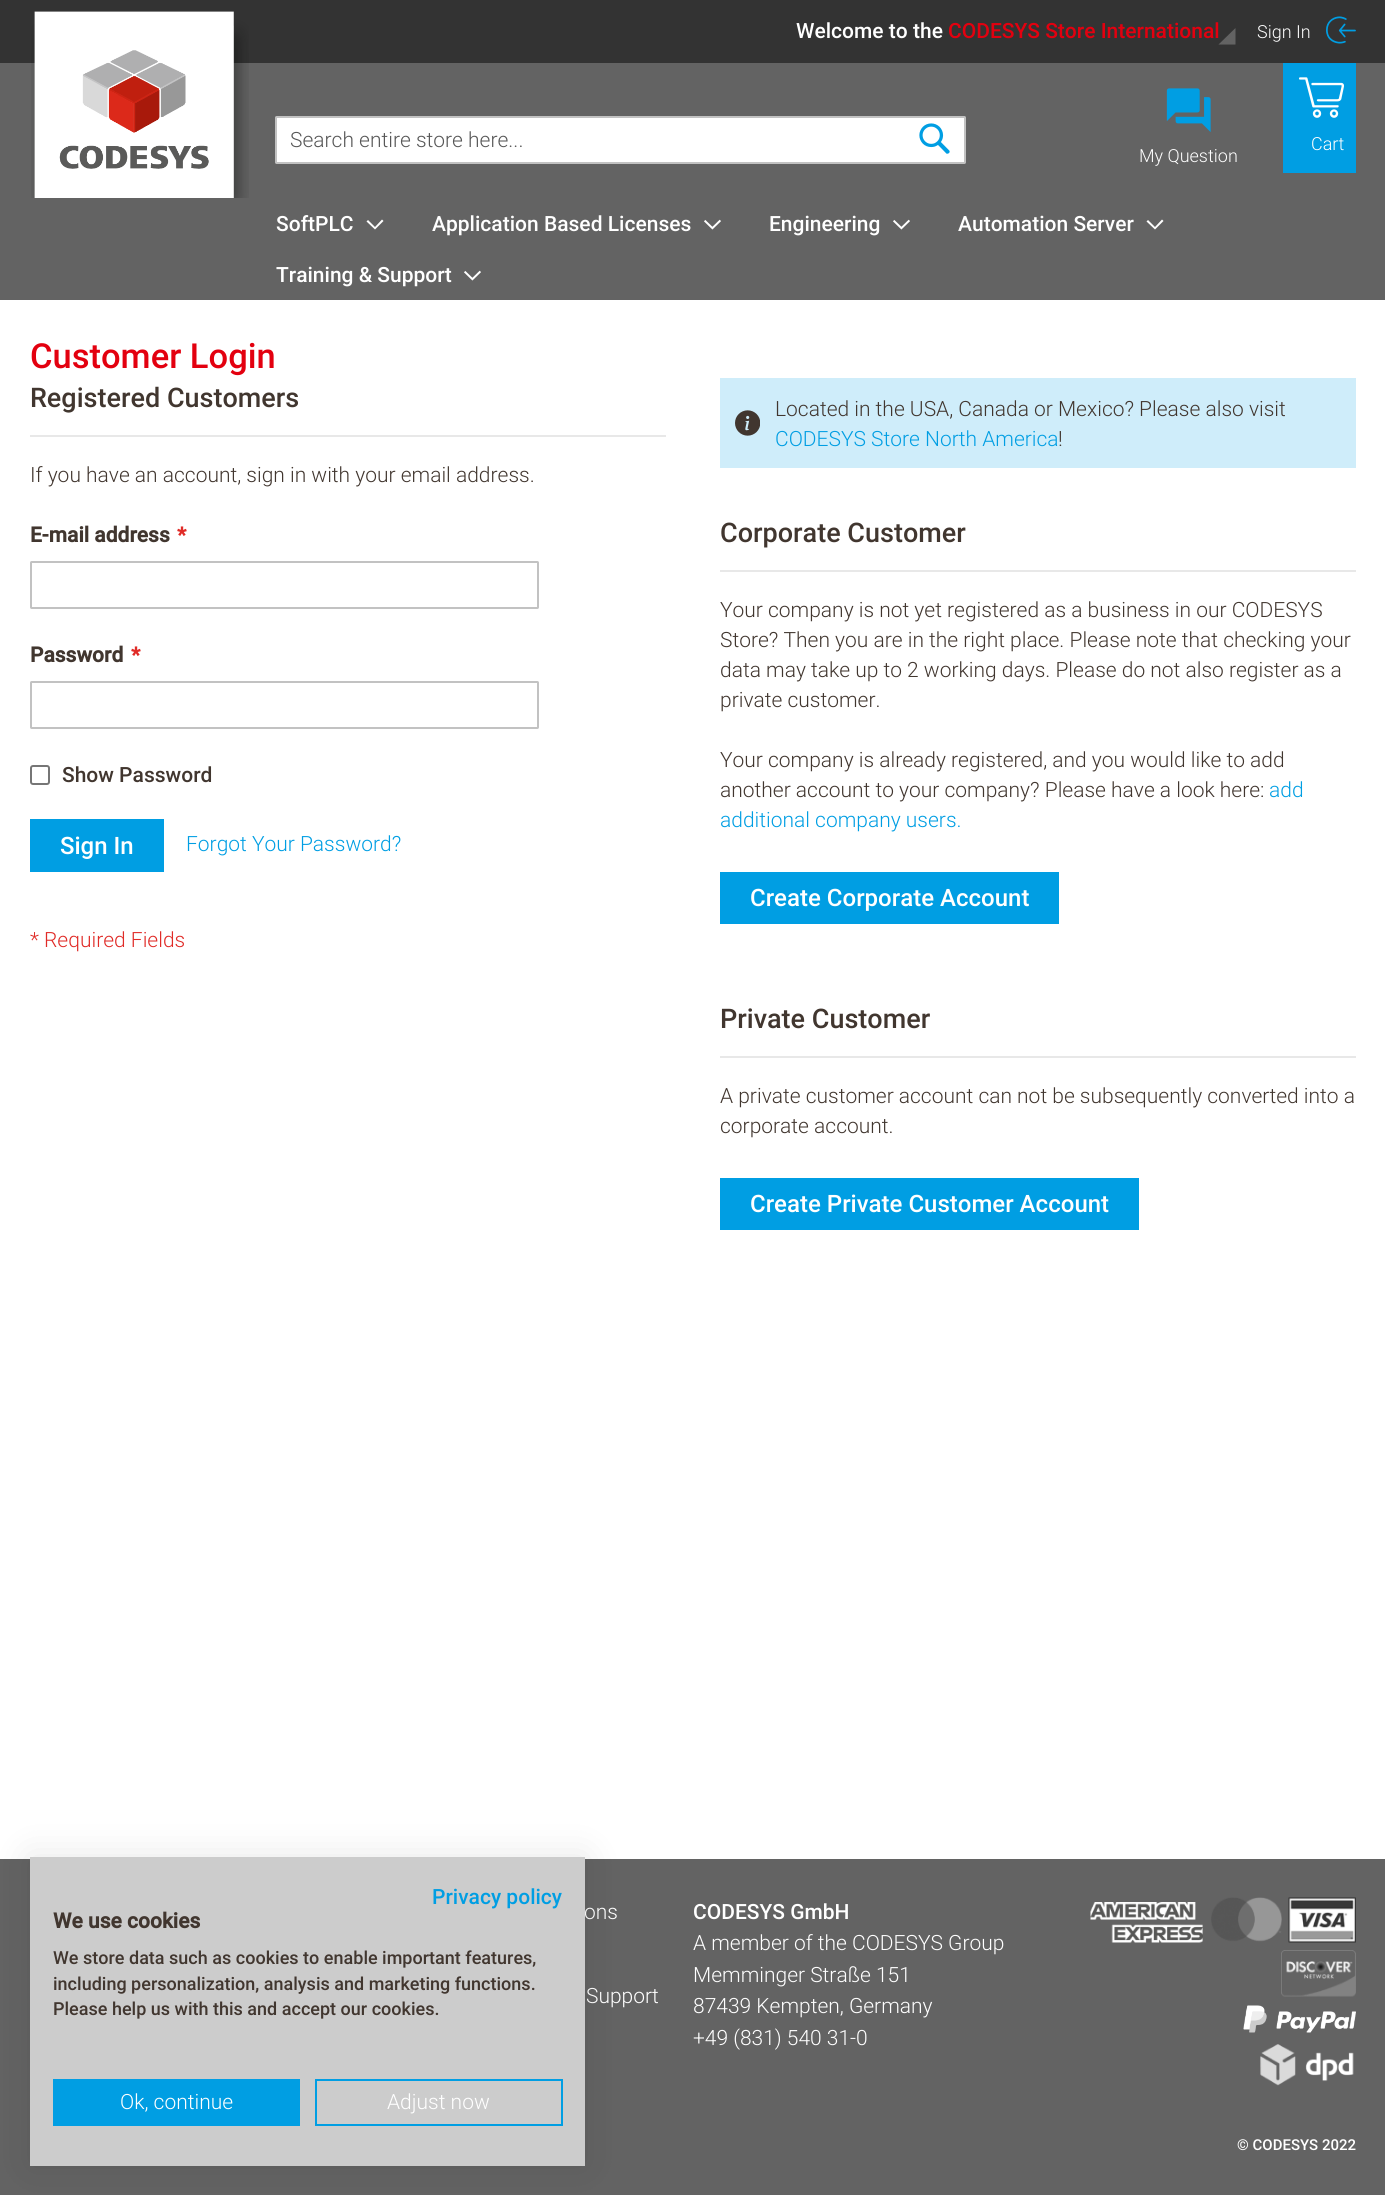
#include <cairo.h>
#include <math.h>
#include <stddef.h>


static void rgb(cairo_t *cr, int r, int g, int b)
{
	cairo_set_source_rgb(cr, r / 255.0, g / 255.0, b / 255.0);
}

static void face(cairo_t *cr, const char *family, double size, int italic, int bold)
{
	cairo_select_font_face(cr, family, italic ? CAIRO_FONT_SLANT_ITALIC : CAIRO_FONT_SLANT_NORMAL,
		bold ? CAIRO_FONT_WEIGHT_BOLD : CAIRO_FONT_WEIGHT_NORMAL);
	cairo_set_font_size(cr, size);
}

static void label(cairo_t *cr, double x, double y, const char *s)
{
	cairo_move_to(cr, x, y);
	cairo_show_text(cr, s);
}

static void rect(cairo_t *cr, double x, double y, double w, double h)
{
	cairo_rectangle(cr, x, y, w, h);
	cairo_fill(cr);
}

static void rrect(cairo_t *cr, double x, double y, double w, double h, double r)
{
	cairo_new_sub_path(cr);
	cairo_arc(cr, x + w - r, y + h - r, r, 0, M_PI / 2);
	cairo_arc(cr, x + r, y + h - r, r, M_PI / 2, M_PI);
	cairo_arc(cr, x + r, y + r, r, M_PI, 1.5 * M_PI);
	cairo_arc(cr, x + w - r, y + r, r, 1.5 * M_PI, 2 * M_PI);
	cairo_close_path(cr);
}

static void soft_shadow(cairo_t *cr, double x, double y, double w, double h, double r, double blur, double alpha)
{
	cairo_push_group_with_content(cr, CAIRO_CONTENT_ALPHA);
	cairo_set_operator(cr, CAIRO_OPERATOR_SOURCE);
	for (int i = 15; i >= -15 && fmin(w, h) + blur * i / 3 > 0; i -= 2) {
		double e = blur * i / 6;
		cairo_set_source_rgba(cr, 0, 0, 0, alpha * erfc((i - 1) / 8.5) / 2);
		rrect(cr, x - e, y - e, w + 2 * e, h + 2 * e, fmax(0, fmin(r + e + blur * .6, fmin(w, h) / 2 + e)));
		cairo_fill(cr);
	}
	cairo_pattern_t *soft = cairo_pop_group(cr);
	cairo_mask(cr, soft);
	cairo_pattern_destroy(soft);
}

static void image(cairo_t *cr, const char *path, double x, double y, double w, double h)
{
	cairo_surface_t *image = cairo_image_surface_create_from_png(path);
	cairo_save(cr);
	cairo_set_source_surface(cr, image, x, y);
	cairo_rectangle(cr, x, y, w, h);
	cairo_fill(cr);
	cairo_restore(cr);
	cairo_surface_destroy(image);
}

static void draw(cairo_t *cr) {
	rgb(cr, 255, 255, 255);
	cairo_paint(cr);
	rgb(cr, 99, 99, 99);
	rect(cr, 0, 63, 1385, 237);
	rgb(cr, 51, 51, 51);
	rect(cr, 0, 0, 1385, 63);
	face(cr, "Roboto Medium", 21, 0, 0);
	rgb(cr, 255, 255, 255);
	label(cr, 796, 38, "Welcome to the");
	rgb(cr, 227, 0, 15);
	label(cr, 948, 38, "CODESYS Store International");
	rgb(cr, 99, 99, 99);
	cairo_new_path(cr);
	cairo_move_to(cr, 1218.5, 44.5);
	cairo_line_to(cr, 1235.5, 28);
	cairo_line_to(cr, 1235.5, 44.5);
	cairo_close_path(cr);
	cairo_fill(cr);
	face(cr, "Roboto Light", 18, 0, 0);
	rgb(cr, 255, 255, 255);
	label(cr, 1257, 38, "Sign In");
	image(cr, "image0.png", 1326, 16, 30, 28);
	image(cr, "image1.png", 31, 11, 218, 187);
	rrect(cr, 276, 117, 689, 46, 0.5);
	cairo_fill_preserve(cr);
	rgb(cr, 194, 194, 194);
	cairo_stroke(cr);
	face(cr, "Roboto Light", 21, 0, 0);
	rgb(cr, 87, 87, 87);
	label(cr, 290, 147, "Search entire store here...");
	image(cr, "image2.png", 919, 123, 31, 31);
	rgb(cr, 0, 158, 227);
	rect(cr, 1283, 63, 73, 110);
	image(cr, "image3.png", 1299, 77, 45, 41);
	face(cr, "Roboto Light", 18, 0, 0);
	rgb(cr, 255, 255, 255);
	label(cr, 1311, 150, "Cart");
	image(cr, "image4.png", 1166, 88, 45, 44);
	label(cr, 1139, 162, "My Question");
	face(cr, "Roboto Medium", 21, 0, 0);
	label(cr, 276, 231, "SoftPLC");
	cairo_new_path(cr);
	cairo_move_to(cr, 375, 227);
	cairo_line_to(cr, 368, 220);
	cairo_line_to(cr, 366.5, 221.5);
	cairo_line_to(cr, 375, 229.5);
	cairo_line_to(cr, 383.5, 221);
	cairo_line_to(cr, 382, 219.5);
	cairo_close_path(cr);
	cairo_fill(cr);
	label(cr, 432, 231, "Application Based Licenses");
	image(cr, "image5.png", 704, 219, 17, 11);
	label(cr, 769, 231, "Engineering");
	image(cr, "image5.png", 893, 219, 17, 11);
	label(cr, 958, 231, "Automation Server");
	cairo_new_path(cr);
	cairo_move_to(cr, 1155, 227);
	cairo_line_to(cr, 1148, 220);
	cairo_line_to(cr, 1146.5, 221.5);
	cairo_line_to(cr, 1155, 229.5);
	cairo_line_to(cr, 1163.5, 221);
	cairo_line_to(cr, 1162, 219.5);
	cairo_close_path(cr);
	cairo_fill(cr);
	label(cr, 276, 282, "Training & Support");
	image(cr, "image5.png", 464, 270, 17, 11);
	face(cr, "Roboto Medium", 34.5, 0, 0);
	rgb(cr, 227, 0, 15);
	label(cr, 30, 368, "Customer Login");
	rgb(cr, 232, 232, 232);
	rect(cr, 30, 435, 636, 2);
	face(cr, "Roboto Medium", 27, 0, 0);
	rgb(cr, 65, 54, 47);
	label(cr, 30, 407, "Registered Customers");
	face(cr, "Roboto Light", 21, 0, 0);
	label(cr, 30, 482, "If you have an account, sign in with your email address.");
	face(cr, "Roboto", 21, 0, 1);
	label(cr, 30, 542, "E-mail address");
	rgb(cr, 224, 43, 39);
	label(cr, 177, 542, "*");
	rrect(cr, 31, 562, 507, 46, 0.5);
	rgb(cr, 194, 194, 194);
	cairo_stroke(cr);
	rgb(cr, 65, 54, 47);
	label(cr, 30, 662, "Password");
	rgb(cr, 224, 43, 39);
	label(cr, 131, 662, "*");
	rrect(cr, 31, 682, 507, 46, 0.5);
	rgb(cr, 194, 194, 194);
	cairo_stroke(cr);
	rrect(cr, 31, 766, 18, 18, 2);
	rgb(cr, 118, 118, 118);
	cairo_stroke(cr);
	face(cr, "Roboto Medium", 21, 0, 0);
	rgb(cr, 65, 54, 47);
	label(cr, 62, 782, "Show Password");
	rgb(cr, 0, 158, 227);
	rect(cr, 30, 819, 134, 53);
	face(cr, "Roboto Medium", 24, 0, 0);
	rgb(cr, 255, 255, 255);
	label(cr, 60, 854, "Sign In");
	face(cr, "Roboto Light", 21, 0, 0);
	rgb(cr, 0, 158, 227);
	label(cr, 186, 851, "Forgot Your Password?");
	rgb(cr, 224, 43, 39);
	label(cr, 30, 947, "* Required Fields");
	rgb(cr, 207, 237, 250);
	rect(cr, 720, 378, 636, 90);
	image(cr, "image6.png", 735, 410, 25, 26);
	rgb(cr, 65, 54, 47);
	label(cr, 775, 416, "Located in the USA, Canada or Mexico? Please also visit");
	rgb(cr, 0, 158, 227);
	label(cr, 775, 446, "CODESYS Store North America");
	rgb(cr, 65, 54, 47);
	label(cr, 1058, 446, "!");
	rgb(cr, 232, 232, 232);
	rect(cr, 720, 570, 636, 2);
	face(cr, "Roboto Medium", 27, 0, 0);
	rgb(cr, 65, 54, 47);
	label(cr, 720, 542, "Corporate Customer");
	face(cr, "Roboto Light", 21, 0, 0);
	label(cr, 720, 617, "Your company is not yet registered as a business in our CODESYS");
	label(cr, 720, 647, "Store? Then you are in the right place. Please note that checking your");
	label(cr, 720, 677, "data may take up to 2 working days. Please do not also register as a");
	label(cr, 720, 707, "private customer.");
	label(cr, 720, 767, "Your company is already registered, and you would like to add");
	label(cr, 720, 797, "another account to your company? Please have a look here:");
	rgb(cr, 0, 158, 227);
	label(cr, 1269, 797, "add");
	label(cr, 720, 827, "additional company users.");
	rect(cr, 720, 872, 339, 52);
	face(cr, "Roboto Medium", 24, 0, 0);
	rgb(cr, 255, 255, 255);
	label(cr, 750, 906, "Create Corporate Account");
	rgb(cr, 232, 232, 232);
	rect(cr, 720, 1056, 636, 2);
	face(cr, "Roboto Medium", 27, 0, 0);
	rgb(cr, 65, 54, 47);
	label(cr, 720, 1028, "Private Customer");
	face(cr, "Roboto Light", 21, 0, 0);
	label(cr, 720, 1103, "A private customer account can not be subsequently converted into a");
	label(cr, 720, 1133, "corporate account.");
	rgb(cr, 0, 158, 227);
	rect(cr, 720, 1178, 419, 52);
	face(cr, "Roboto Medium", 24, 0, 0);
	rgb(cr, 255, 255, 255);
	label(cr, 750, 1212, "Create Private Customer Account");
	rgb(cr, 99, 99, 99);
	rect(cr, 0, 1859, 1385, 336);
	face(cr, "Roboto Light", 21, 0, 0);
	rgb(cr, 255, 255, 255);
	label(cr, 584, 1919, "ons");
	label(cr, 586, 2003, "Support");
	face(cr, "Roboto Medium", 21, 0, 0);
	label(cr, 693, 1919, "CODESYS GmbH");
	face(cr, "Roboto Light", 21, 0, 0);
	label(cr, 693, 1950, "A member of the CODESYS Group");
	label(cr, 693, 1982, "Memminger Straße 151");
	label(cr, 693, 2013, "87439 Kempten, Germany");
	label(cr, 693, 2045, "+49 (831) 540 31-0");
	image(cr, "image7.png", 1090, 1902, 113, 41);
	image(cr, "image8.png", 1211, 1897, 71, 45);
	image(cr, "image9.png", 1288, 1897, 68, 46);
	image(cr, "image10.png", 1281, 1950, 75, 47);
	image(cr, "image11.png", 1243, 2005, 113, 28);
	image(cr, "image12.png", 1260, 2044, 94, 42);
	face(cr, "Roboto Medium", 15, 0, 0);
	label(cr, 1237, 2150, "© CODESYS 2022");
	rgb(cr, 0, 0, 0);
	soft_shadow(cr, 30, 1857, 555, 309, 0, 18, 0.1);
	rgb(cr, 204, 204, 204);
	rect(cr, 30, 1857, 555, 309);
	face(cr, "Roboto Medium", 21, 0, 0);
	rgb(cr, 0, 158, 227);
	label(cr, 432, 1904, "Privacy policy");
	face(cr, "Roboto", 21, 0, 1);
	rgb(cr, 65, 54, 47);
	label(cr, 53, 1928, "We use cookies");
	face(cr, "Roboto Medium", 18, 0, 0);
	label(cr, 53, 1964, "We store data such as cookies to enable important features,");
	label(cr, 53, 1990, "including personalization, analysis and marketing functions.");
	label(cr, 53, 2015, "Please help us with this and accept our cookies.");
	rgb(cr, 0, 158, 227);
	rect(cr, 53, 2079, 247, 47);
	face(cr, "Roboto Light", 21, 0, 0);
	rgb(cr, 255, 255, 255);
	label(cr, 120, 2109, "Ok, continue");
	cairo_rectangle(cr, 316, 2080, 246, 45);
	rgb(cr, 0, 158, 227);
	cairo_stroke(cr);
	rgb(cr, 255, 255, 255);
	label(cr, 387, 2109, "Adjust now");
}

int main(void) {
	cairo_surface_t *surface = cairo_image_surface_create(CAIRO_FORMAT_RGB24, 1385, 2195);
	cairo_t *cr = cairo_create(surface);
	cairo_font_options_t *options = cairo_font_options_create();
	cairo_font_options_set_hint_metrics(options, CAIRO_HINT_METRICS_OFF);
	cairo_font_options_set_hint_style(options, CAIRO_HINT_STYLE_NONE);
	cairo_set_font_options(cr, options);
	cairo_set_miter_limit(cr, 4);
	draw(cr);
	cairo_surface_write_to_png(surface, "render.png");
	cairo_font_options_destroy(options);
	cairo_destroy(cr);
	cairo_surface_destroy(surface);
	return 0;
}
